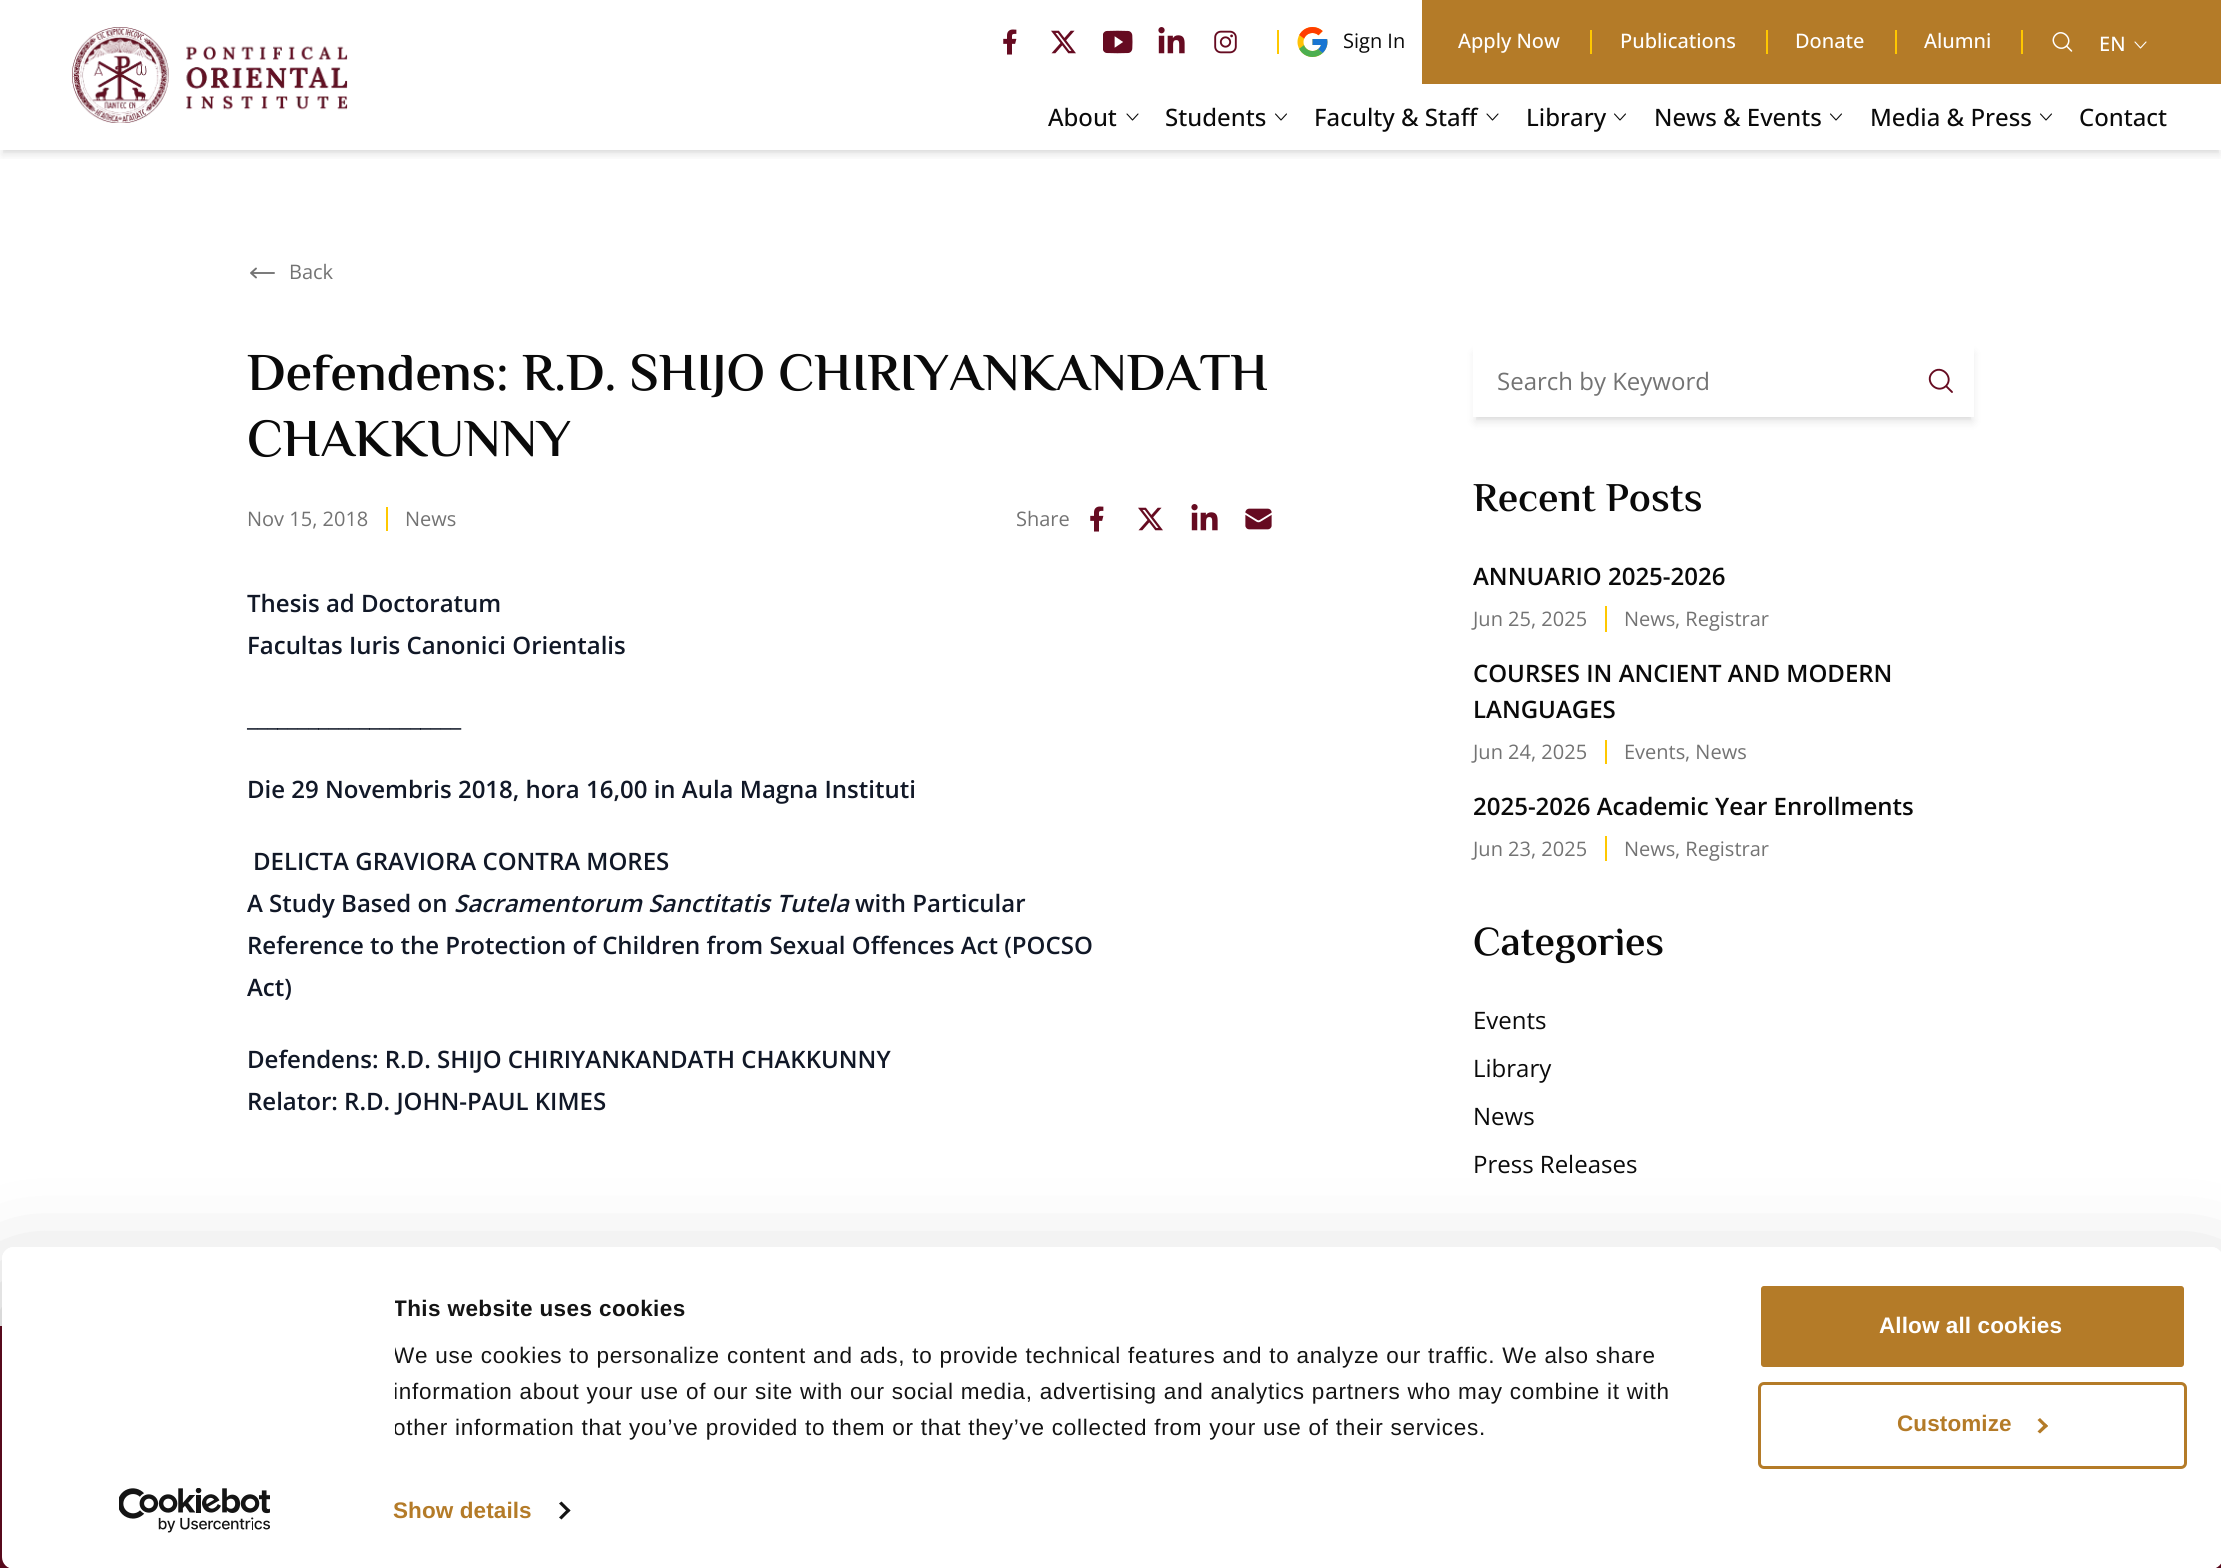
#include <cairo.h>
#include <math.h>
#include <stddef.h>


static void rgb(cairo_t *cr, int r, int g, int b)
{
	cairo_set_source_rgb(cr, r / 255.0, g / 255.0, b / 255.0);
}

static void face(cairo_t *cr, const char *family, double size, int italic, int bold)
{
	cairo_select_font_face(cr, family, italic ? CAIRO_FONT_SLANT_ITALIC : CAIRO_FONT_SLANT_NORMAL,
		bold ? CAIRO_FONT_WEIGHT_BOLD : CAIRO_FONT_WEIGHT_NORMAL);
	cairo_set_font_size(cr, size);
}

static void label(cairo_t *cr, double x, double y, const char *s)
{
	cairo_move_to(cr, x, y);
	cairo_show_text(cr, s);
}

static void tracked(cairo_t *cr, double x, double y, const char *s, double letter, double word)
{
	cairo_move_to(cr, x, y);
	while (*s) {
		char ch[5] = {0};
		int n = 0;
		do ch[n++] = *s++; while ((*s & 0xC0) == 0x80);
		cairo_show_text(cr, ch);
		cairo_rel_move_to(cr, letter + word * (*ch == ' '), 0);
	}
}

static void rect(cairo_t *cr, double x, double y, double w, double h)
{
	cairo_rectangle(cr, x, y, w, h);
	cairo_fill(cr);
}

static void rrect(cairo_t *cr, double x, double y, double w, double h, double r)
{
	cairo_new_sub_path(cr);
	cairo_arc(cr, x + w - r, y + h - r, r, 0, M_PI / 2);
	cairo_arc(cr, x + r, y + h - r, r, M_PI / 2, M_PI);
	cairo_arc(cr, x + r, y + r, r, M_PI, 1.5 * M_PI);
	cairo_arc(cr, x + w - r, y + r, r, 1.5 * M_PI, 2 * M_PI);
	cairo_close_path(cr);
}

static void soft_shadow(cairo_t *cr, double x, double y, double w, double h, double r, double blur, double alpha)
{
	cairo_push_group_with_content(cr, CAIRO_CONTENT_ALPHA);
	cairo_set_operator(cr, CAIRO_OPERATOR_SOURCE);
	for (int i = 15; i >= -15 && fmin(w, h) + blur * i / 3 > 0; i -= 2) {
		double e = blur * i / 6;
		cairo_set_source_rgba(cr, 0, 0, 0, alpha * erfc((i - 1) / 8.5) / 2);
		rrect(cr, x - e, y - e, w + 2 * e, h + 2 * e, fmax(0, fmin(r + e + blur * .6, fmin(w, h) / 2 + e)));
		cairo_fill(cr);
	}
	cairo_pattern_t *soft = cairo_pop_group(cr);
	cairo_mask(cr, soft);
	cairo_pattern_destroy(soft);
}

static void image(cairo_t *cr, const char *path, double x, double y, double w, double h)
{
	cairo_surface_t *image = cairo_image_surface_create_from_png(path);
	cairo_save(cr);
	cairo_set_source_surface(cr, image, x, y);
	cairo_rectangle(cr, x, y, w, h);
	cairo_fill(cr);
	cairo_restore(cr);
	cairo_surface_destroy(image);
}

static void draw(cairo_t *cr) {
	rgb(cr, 255, 255, 255);
	cairo_paint(cr);
	cairo_save(cr);
	cairo_rectangle(cr, 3, 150, 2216, 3);
	cairo_clip(cr);
	rgb(cr, 0, 0, 0);
	soft_shadow(cr, 3, 6, 2216, 144, 0, 3, 0.1);
	cairo_restore(cr);
	cairo_save(cr);
	cairo_rectangle(cr, 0, 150, 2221, 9);
	cairo_clip(cr);
	rgb(cr, 0, 0, 0);
	soft_shadow(cr, 2, 8, 2218, 147, 0, 4.5, 0.1);
	cairo_restore(cr);
	image(cr, "image0.png", 72, 27, 276, 96);
	image(cr, "image1.png", 1003, 29, 14, 26);
	image(cr, "image2.png", 1051, 30, 25, 24);
	image(cr, "image3.png", 1103, 30, 30, 24);
	image(cr, "image4.png", 1158, 27, 27, 27);
	image(cr, "image5.png", 1214, 30, 23, 24);
	rgb(cr, 255, 200, 0);
	rect(cr, 1277, 30, 2, 24);
	image(cr, "image6.png", 1297, 27, 31, 30);
	face(cr, "Open Sans", 20, 0, 0);
	rgb(cr, 10, 10, 10);
	label(cr, 1343, 48, "Sign In");
	rgb(cr, 180, 123, 40);
	rect(cr, 1422, 0, 799, 84);
	face(cr, "Open Sans Medium", 20, 0, 0);
	rgb(cr, 255, 255, 255);
	label(cr, 1458, 48, "Apply Now");
	rgb(cr, 255, 200, 0);
	rect(cr, 1590, 30, 2, 24);
	rgb(cr, 255, 255, 255);
	label(cr, 1620, 48, "Publications");
	rgb(cr, 255, 200, 0);
	rect(cr, 1766, 30, 2, 24);
	rgb(cr, 255, 255, 255);
	label(cr, 1795, 48, "Donate");
	rgb(cr, 255, 200, 0);
	rect(cr, 1895, 30, 2, 24);
	rgb(cr, 255, 255, 255);
	label(cr, 1924, 48, "Alumni");
	rgb(cr, 255, 200, 0);
	rect(cr, 2021, 30, 2, 24);
	cairo_new_path(cr);
	cairo_move_to(cr, 2071.5, 51);
	cairo_line_to(cr, 2066.5, 46);
	cairo_move_to(cr, 2066.5, 46);
	cairo_curve_to(cr, 2073.5, 39, 2062.5, 28, 2055.5, 35);
	cairo_curve_to(cr, 2048.5, 42, 2059.5, 53, 2066.5, 46);
	cairo_close_path(cr);
	rgb(cr, 255, 255, 255);
	cairo_set_line_width(cr, 1.5);
	cairo_set_line_cap(cr, CAIRO_LINE_CAP_ROUND);
	cairo_set_line_join(cr, CAIRO_LINE_JOIN_ROUND);
	cairo_stroke(cr);
	label(cr, 2099, 51, "EN");
	cairo_new_path(cr);
	cairo_move_to(cr, 2146, 42);
	cairo_line_to(cr, 2140.5, 48);
	cairo_line_to(cr, 2135, 42);
	cairo_set_line_width(cr, 1.1);
	cairo_stroke(cr);
	face(cr, "Open Sans Medium", 24, 0, 0);
	rgb(cr, 10, 10, 10);
	label(cr, 1048, 126, "About");
	cairo_new_path(cr);
	cairo_move_to(cr, 1138, 114);
	cairo_line_to(cr, 1132.5, 120);
	cairo_line_to(cr, 1127, 114);
	cairo_stroke(cr);
	label(cr, 1165, 126, "Students");
	cairo_new_path(cr);
	cairo_move_to(cr, 1286.5, 114);
	cairo_line_to(cr, 1281, 120);
	cairo_line_to(cr, 1275.5, 114);
	cairo_stroke(cr);
	label(cr, 1314, 126, "Faculty & Staff");
	cairo_new_path(cr);
	cairo_move_to(cr, 1498, 114);
	cairo_line_to(cr, 1492.5, 120);
	cairo_line_to(cr, 1487, 114);
	cairo_stroke(cr);
	label(cr, 1526, 126, "Library");
	cairo_new_path(cr);
	cairo_move_to(cr, 1625.5, 114);
	cairo_line_to(cr, 1620, 120);
	cairo_line_to(cr, 1614.5, 114);
	cairo_stroke(cr);
	label(cr, 1654, 126, "News & Events");
	cairo_new_path(cr);
	cairo_move_to(cr, 1841.5, 114);
	cairo_line_to(cr, 1836, 120);
	cairo_line_to(cr, 1830.5, 114);
	cairo_stroke(cr);
	label(cr, 1870, 126, "Media & Press");
	cairo_new_path(cr);
	cairo_move_to(cr, 2051.5, 114);
	cairo_line_to(cr, 2046, 120);
	cairo_line_to(cr, 2040.5, 114);
	cairo_stroke(cr);
	label(cr, 2079, 126, "Contact");
	cairo_new_path(cr);
	cairo_move_to(cr, 256, 277.5);
	cairo_line_to(cr, 251, 273);
	cairo_move_to(cr, 251, 273);
	cairo_line_to(cr, 256, 268.5);
	cairo_move_to(cr, 251, 273);
	cairo_line_to(cr, 274, 273);
	rgb(cr, 115, 115, 115);
	cairo_set_line_width(cr, 1.9);
	cairo_stroke(cr);
	face(cr, "Open Sans", 20, 0, 0);
	label(cr, 289, 279, "Back");
	face(cr, "El Messiri SemiBold", 53.1, 0, 0);
	rgb(cr, 10, 10, 10);
	label(cr, 247, 390, "Defendens: R.D. SHIJO CHIRIYANKANDATH");
	label(cr, 247, 456, "CHAKKUNNY");
	rgb(cr, 255, 200, 0);
	rect(cr, 386, 507, 2, 24);
	face(cr, "Open Sans", 20, 0, 0);
	rgb(cr, 115, 115, 115);
	label(cr, 247, 526, "Nov 15, 2018");
	label(cr, 405, 526, "News");
	label(cr, 1016, 526, "Share");
	image(cr, "image1.png", 1090, 506, 14, 26);
	image(cr, "image2.png", 1138, 507, 25, 24);
	image(cr, "image4.png", 1191, 504, 27, 27);
	image(cr, "image7.png", 1245, 508, 27, 22);
	face(cr, "Open Sans SemiBold", 24, 0, 0);
	rgb(cr, 17, 24, 39);
	label(cr, 247, 612, "Thesis ad Doctoratum");
	label(cr, 247, 654, "Facultas Iuris Canonici Orientalis");
	label(cr, 247, 726, "_____________________");
	label(cr, 247, 798, "Die 29 Novembris 2018, hora 16,00 in Aula Magna Instituti");
	label(cr, 253, 870, "DELICTA GRAVIORA CONTRA MORES");
	label(cr, 247, 912, "A Study Based on");
	face(cr, "Open Sans SemiBold", 24, 1, 0);
	label(cr, 454, 912, "Sacramentorum Sanctitatis Tutela");
	face(cr, "Open Sans SemiBold", 24, 0, 0);
	label(cr, 855, 912, "with Particular");
	label(cr, 247, 954, "Reference to the Protection of Children from Sexual Offences Act (POCSO");
	label(cr, 247, 996, "Act)");
	label(cr, 247, 1068, "Defendens: R.D. SHIJO CHIRIYANKANDATH CHAKKUNNY");
	label(cr, 247, 1110, "Relator: R.D. JOHN-PAUL KIMES");
	cairo_save(cr);
	cairo_rectangle(cr, 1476, 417, 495, 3);
	cairo_clip(cr);
	rgb(cr, 0, 0, 0);
	soft_shadow(cr, 1476, 351, 495, 66, 0, 3, 0.1);
	cairo_restore(cr);
	cairo_save(cr);
	cairo_set_fill_rule(cr, CAIRO_FILL_RULE_EVEN_ODD);
	cairo_new_path(cr);
	cairo_move_to(cr, 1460, 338);
	cairo_line_to(cr, 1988, 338);
	cairo_line_to(cr, 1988, 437);
	cairo_line_to(cr, 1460, 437);
	cairo_close_path(cr);
	cairo_move_to(cr, 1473, 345);
	cairo_line_to(cr, 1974, 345);
	cairo_line_to(cr, 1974, 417);
	cairo_line_to(cr, 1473, 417);
	cairo_close_path(cr);
	cairo_clip(cr);
	rgb(cr, 0, 0, 0);
	soft_shadow(cr, 1475, 353, 498, 69, 0, 4.5, 0.1);
	cairo_restore(cr);
	cairo_new_path(cr);
	cairo_move_to(cr, 1952, 392);
	cairo_line_to(cr, 1946, 386);
	cairo_move_to(cr, 1946, 386);
	cairo_curve_to(cr, 1954.5, 377, 1941, 364, 1932.5, 372.5);
	cairo_curve_to(cr, 1924, 381, 1937, 394.5, 1946, 386);
	cairo_close_path(cr);
	rgb(cr, 102, 11, 33);
	cairo_stroke(cr);
	face(cr, "Open Sans", 24, 0, 0);
	rgb(cr, 115, 115, 115);
	label(cr, 1497, 390, "Search by Keyword");
	face(cr, "El Messiri SemiBold", 40.75, 0, 0);
	rgb(cr, 10, 10, 10);
	label(cr, 1473, 511, "Recent Posts");
	face(cr, "Open Sans SemiBold", 24, 0, 0);
	label(cr, 1473, 585, "ANNUARIO 2025-2026");
	rgb(cr, 255, 200, 0);
	rect(cr, 1605, 606, 2, 26);
	face(cr, "Open Sans", 20, 0, 0);
	rgb(cr, 115, 115, 115);
	label(cr, 1473, 626, "Jun 25, 2025");
	label(cr, 1624, 626, "News");
	label(cr, 1675, 626, ", Registrar");
	face(cr, "Open Sans SemiBold", 24, 0, 0);
	rgb(cr, 10, 10, 10);
	label(cr, 1473, 682, "COURSES IN ANCIENT AND MODERN");
	label(cr, 1473, 718, "LANGUAGES");
	rgb(cr, 255, 200, 0);
	rect(cr, 1605, 740, 2, 24);
	face(cr, "Open Sans", 20, 0, 0);
	rgb(cr, 115, 115, 115);
	label(cr, 1473, 759, "Jun 24, 2025");
	label(cr, 1624, 759, "Events");
	label(cr, 1685, 759, ", News");
	face(cr, "Open Sans SemiBold", 24, 0, 0);
	rgb(cr, 10, 10, 10);
	label(cr, 1473, 815, "2025-2026 Academic Year Enrollments");
	rgb(cr, 255, 200, 0);
	rect(cr, 1605, 836, 2, 25);
	face(cr, "Open Sans", 20, 0, 0);
	rgb(cr, 115, 115, 115);
	label(cr, 1473, 856, "Jun 23, 2025");
	label(cr, 1624, 856, "News");
	label(cr, 1675, 856, ", Registrar");
	face(cr, "El Messiri SemiBold", 40.75, 0, 0);
	rgb(cr, 10, 10, 10);
	label(cr, 1473, 955, "Categories");
	face(cr, "Open Sans", 24, 0, 0);
	label(cr, 1473, 1029, "Events");
	label(cr, 1473, 1077, "Library");
	label(cr, 1473, 1125, "News");
	label(cr, 1473, 1173, "Press Releases");
	rgb(cr, 102, 11, 33);
	rect(cr, 0, 1326, 2221, 242);
	cairo_save(cr);
	cairo_set_fill_rule(cr, CAIRO_FILL_RULE_EVEN_ODD);
	cairo_new_path(cr);
	cairo_move_to(cr, 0, 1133);
	cairo_line_to(cr, 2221, 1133);
	cairo_line_to(cr, 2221, 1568);
	cairo_line_to(cr, 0, 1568);
	cairo_close_path(cr);
	cairo_move_to(cr, 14, 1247);
	cairo_line_to(cr, 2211, 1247);
	cairo_curve_to(cr, 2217.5, 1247, 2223, 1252.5, 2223, 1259);
	cairo_line_to(cr, 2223, 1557);
	cairo_curve_to(cr, 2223, 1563.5, 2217.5, 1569, 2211, 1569);
	cairo_line_to(cr, 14, 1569);
	cairo_curve_to(cr, 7.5, 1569, 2, 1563.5, 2, 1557);
	cairo_line_to(cr, 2, 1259);
	cairo_curve_to(cr, 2, 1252.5, 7.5, 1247, 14, 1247);
	cairo_close_path(cr);
	cairo_clip(cr);
	rgb(cr, 0, 0, 0);
	soft_shadow(cr, 2, 1292, 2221, 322, 12, 52.5, 0.3);
	cairo_restore(cr);
	rgb(cr, 255, 255, 255);
	rrect(cr, 2, 1247, 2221, 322, 12);
	cairo_fill(cr);
	cairo_save(cr);
	cairo_rectangle(cr, 395, 1292, 1354, 154);
	cairo_clip(cr);
	face(cr, "Liberation Sans", 22.5, 0, 1);
	rgb(cr, 20, 20, 20);
	tracked(cr, 393, 1316, "This website uses cookies", 0.4, 0);
	face(cr, "Liberation Sans", 22.5, 0, 0);
	tracked(cr, 393, 1363, "We use cookies to personalize content and ads, to provide technical features and to analyze our traffic. We also share", 0.75, 0);
	tracked(cr, 393, 1399, "information about your use of our site with our social media, advertising and analytics partners who may combine it with", 0.75, 0);
	tracked(cr, 393, 1435, "other information that you’ve provided to them or that they’ve collected from your use of their services.", 0.75, 0);
	cairo_restore(cr);
	face(cr, "Liberation Sans", 22.5, 0, 1);
	rgb(cr, 180, 123, 40);
	tracked(cr, 393, 1518, "Show details", 0.1, 0);
	rgb(cr, 20, 20, 20);
	cairo_new_path(cr);
	cairo_move_to(cr, 561.5, 1501.5);
	cairo_line_to(cr, 570.5, 1510.5);
	cairo_line_to(cr, 568, 1512.5);
	cairo_line_to(cr, 559, 1503.5);
	cairo_close_path(cr);
	cairo_fill(cr);
	cairo_new_path(cr);
	cairo_move_to(cr, 568, 1508.5);
	cairo_line_to(cr, 570.5, 1510.5);
	cairo_line_to(cr, 561.5, 1519.5);
	cairo_line_to(cr, 559, 1517.5);
	cairo_close_path(cr);
	cairo_fill(cr);
	rgb(cr, 180, 123, 40);
	rrect(cr, 1759.5, 1284.5, 426, 84, 4.5);
	cairo_fill_preserve(cr);
	rgb(cr, 255, 255, 255);
	cairo_set_line_width(cr, 3);
	cairo_set_line_cap(cr, CAIRO_LINE_CAP_BUTT);
	cairo_set_line_join(cr, CAIRO_LINE_JOIN_MITER);
	cairo_stroke(cr);
	tracked(cr, 1879, 1333, "Allow all cookies", 0.1, 0);
	rrect(cr, 1759.5, 1383.5, 426, 84, 4.5);
	rgb(cr, 180, 123, 40);
	cairo_stroke(cr);
	tracked(cr, 1897, 1431, "Customize", 0.1, 0);
	cairo_new_path(cr);
	cairo_move_to(cr, 2040, 1418);
	cairo_line_to(cr, 2048, 1426);
	cairo_line_to(cr, 2045.5, 1428);
	cairo_line_to(cr, 2037.5, 1420);
	cairo_close_path(cr);
	cairo_fill(cr);
	cairo_new_path(cr);
	cairo_move_to(cr, 2045.5, 1423.5);
	cairo_line_to(cr, 2048, 1426);
	cairo_line_to(cr, 2040, 1433.5);
	cairo_line_to(cr, 2037.5, 1431.5);
	cairo_close_path(cr);
	cairo_fill(cr);
	image(cr, "image8.png", 119, 1488, 151, 45);
}

int main(void) {
	cairo_surface_t *surface = cairo_image_surface_create(CAIRO_FORMAT_RGB24, 2221, 1568);
	cairo_t *cr = cairo_create(surface);
	cairo_font_options_t *options = cairo_font_options_create();
	cairo_font_options_set_hint_metrics(options, CAIRO_HINT_METRICS_OFF);
	cairo_font_options_set_hint_style(options, CAIRO_HINT_STYLE_NONE);
	cairo_set_font_options(cr, options);
	cairo_set_miter_limit(cr, 4);
	draw(cr);
	cairo_surface_write_to_png(surface, "render.png");
	cairo_font_options_destroy(options);
	cairo_destroy(cr);
	cairo_surface_destroy(surface);
	return 0;
}
